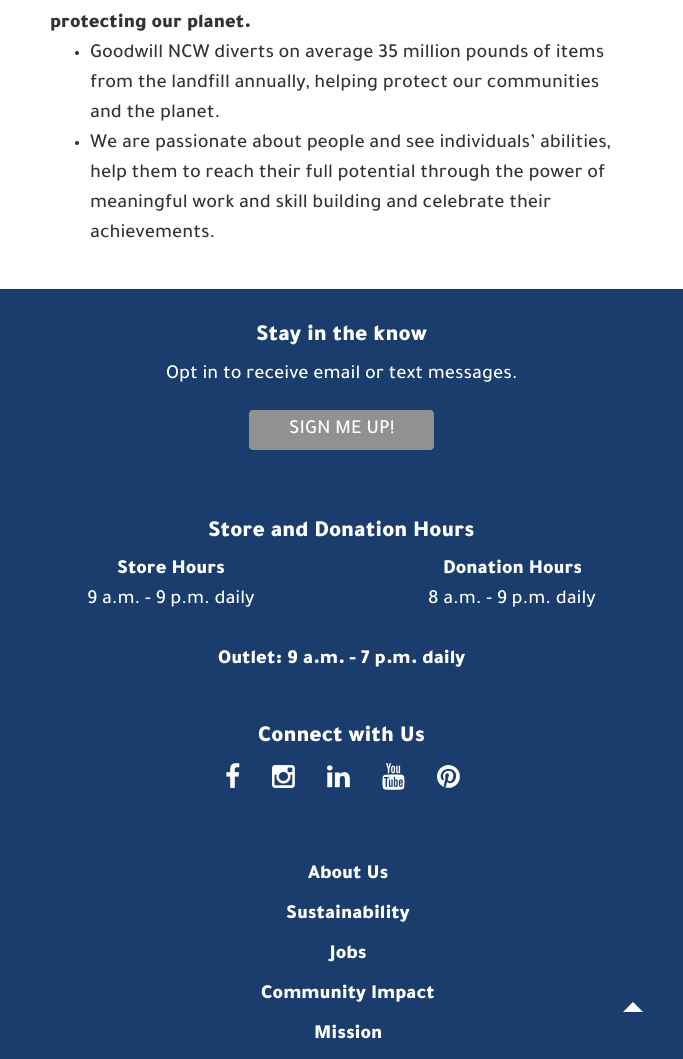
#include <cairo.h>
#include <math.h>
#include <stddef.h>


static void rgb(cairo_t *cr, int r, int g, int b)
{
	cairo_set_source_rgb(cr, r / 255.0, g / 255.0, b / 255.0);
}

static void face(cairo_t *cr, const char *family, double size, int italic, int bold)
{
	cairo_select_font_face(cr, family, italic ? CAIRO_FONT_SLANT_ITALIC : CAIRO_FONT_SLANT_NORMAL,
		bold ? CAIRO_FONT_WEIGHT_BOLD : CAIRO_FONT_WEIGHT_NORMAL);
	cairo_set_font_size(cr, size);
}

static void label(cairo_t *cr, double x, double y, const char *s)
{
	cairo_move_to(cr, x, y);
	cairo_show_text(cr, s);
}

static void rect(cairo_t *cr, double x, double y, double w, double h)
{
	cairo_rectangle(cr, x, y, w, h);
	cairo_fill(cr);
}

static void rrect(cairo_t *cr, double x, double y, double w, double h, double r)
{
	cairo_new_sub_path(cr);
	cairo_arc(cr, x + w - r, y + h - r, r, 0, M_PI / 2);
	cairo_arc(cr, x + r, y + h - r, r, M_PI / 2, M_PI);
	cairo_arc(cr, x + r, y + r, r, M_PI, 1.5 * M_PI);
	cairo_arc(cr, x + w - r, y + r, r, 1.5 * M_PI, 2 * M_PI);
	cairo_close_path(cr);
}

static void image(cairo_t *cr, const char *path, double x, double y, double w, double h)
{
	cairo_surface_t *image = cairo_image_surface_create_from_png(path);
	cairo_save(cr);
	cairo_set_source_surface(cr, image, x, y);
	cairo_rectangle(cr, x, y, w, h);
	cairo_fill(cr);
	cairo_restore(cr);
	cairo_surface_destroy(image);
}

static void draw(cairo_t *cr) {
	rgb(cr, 255, 255, 255);
	cairo_paint(cr);
	face(cr, "Tajawal Black", 20, 0, 0);
	rgb(cr, 51, 51, 51);
	label(cr, 50, 27, "protecting our planet.");
	cairo_new_path(cr);
	cairo_arc(cr, 77, 53, 2, 0, 2 * M_PI);
	cairo_fill(cr);
	face(cr, "Tajawal Medium", 20, 0, 0);
	label(cr, 90, 57, "Goodwill NCW diverts on average 35 million pounds of items");
	label(cr, 90, 87, "from the landfill annually, helping protect our communities");
	label(cr, 90, 117, "and the planet.");
	cairo_new_path(cr);
	cairo_arc(cr, 77, 143, 2, 0, 2 * M_PI);
	cairo_fill(cr);
	label(cr, 90, 147, "We are passionate about people and see individuals’ abilities,");
	label(cr, 90, 177, "help them to reach their full potential through the power of");
	label(cr, 90, 207, "meaningful work and skill building and celebrate their");
	label(cr, 90, 237, "achievements.");
	rgb(cr, 26, 61, 110);
	rect(cr, 0, 289, 683, 770);
	face(cr, "Tajawal Black", 23, 0, 0);
	rgb(cr, 255, 255, 255);
	label(cr, 256, 340, "Stay in the know");
	face(cr, "Tajawal Medium", 20, 0, 0);
	label(cr, 166, 378, "Opt in to receive email or text messages.");
	rgb(cr, 145, 145, 145);
	rrect(cr, 249, 410, 185, 40, 4);
	cairo_fill(cr);
	rgb(cr, 255, 255, 255);
	label(cr, 289, 433, "SIGN ME UP!");
	face(cr, "Tajawal Black", 23, 0, 0);
	label(cr, 208, 536, "Store and Donation Hours");
	face(cr, "Tajawal Black", 20, 0, 0);
	label(cr, 117, 573, "Store Hours");
	label(cr, 443, 573, "Donation Hours");
	face(cr, "Tajawal Medium", 20, 0, 0);
	label(cr, 87, 603, "9 a.m. - 9 p.m. daily");
	label(cr, 428, 603, "8 a.m. - 9 p.m. daily");
	face(cr, "Tajawal Black", 20, 0, 0);
	label(cr, 218, 663, "Outlet: 9 a.m. - 7 p.m. daily");
	face(cr, "Tajawal Black", 23, 0, 0);
	label(cr, 258, 741, "Connect with Us");
	image(cr, "image0.png", 226, 763, 14, 25);
	image(cr, "image1.png", 272, 765, 23, 23);
	image(cr, "image2.png", 327, 765, 23, 23);
	image(cr, "image3.png", 382, 763, 23, 27);
	image(cr, "image4.png", 437, 765, 23, 23);
	face(cr, "Tajawal Black", 20, 0, 0);
	label(cr, 308, 878, "About Us");
	label(cr, 286, 918, "Sustainability");
	label(cr, 330, 958, "Jobs");
	label(cr, 261, 998, "Community Impact");
	label(cr, 314, 1038, "Mission");
	cairo_new_path(cr);
	cairo_move_to(cr, 643, 1012);
	cairo_line_to(cr, 623, 1012);
	cairo_line_to(cr, 633, 1002);
	cairo_close_path(cr);
	cairo_fill(cr);
}

int main(void) {
	cairo_surface_t *surface = cairo_image_surface_create(CAIRO_FORMAT_RGB24, 683, 1059);
	cairo_t *cr = cairo_create(surface);
	cairo_font_options_t *options = cairo_font_options_create();
	cairo_font_options_set_hint_metrics(options, CAIRO_HINT_METRICS_OFF);
	cairo_font_options_set_hint_style(options, CAIRO_HINT_STYLE_NONE);
	cairo_set_font_options(cr, options);
	cairo_set_miter_limit(cr, 4);
	draw(cr);
	cairo_surface_write_to_png(surface, "render.png");
	cairo_font_options_destroy(options);
	cairo_destroy(cr);
	cairo_surface_destroy(surface);
	return 0;
}
